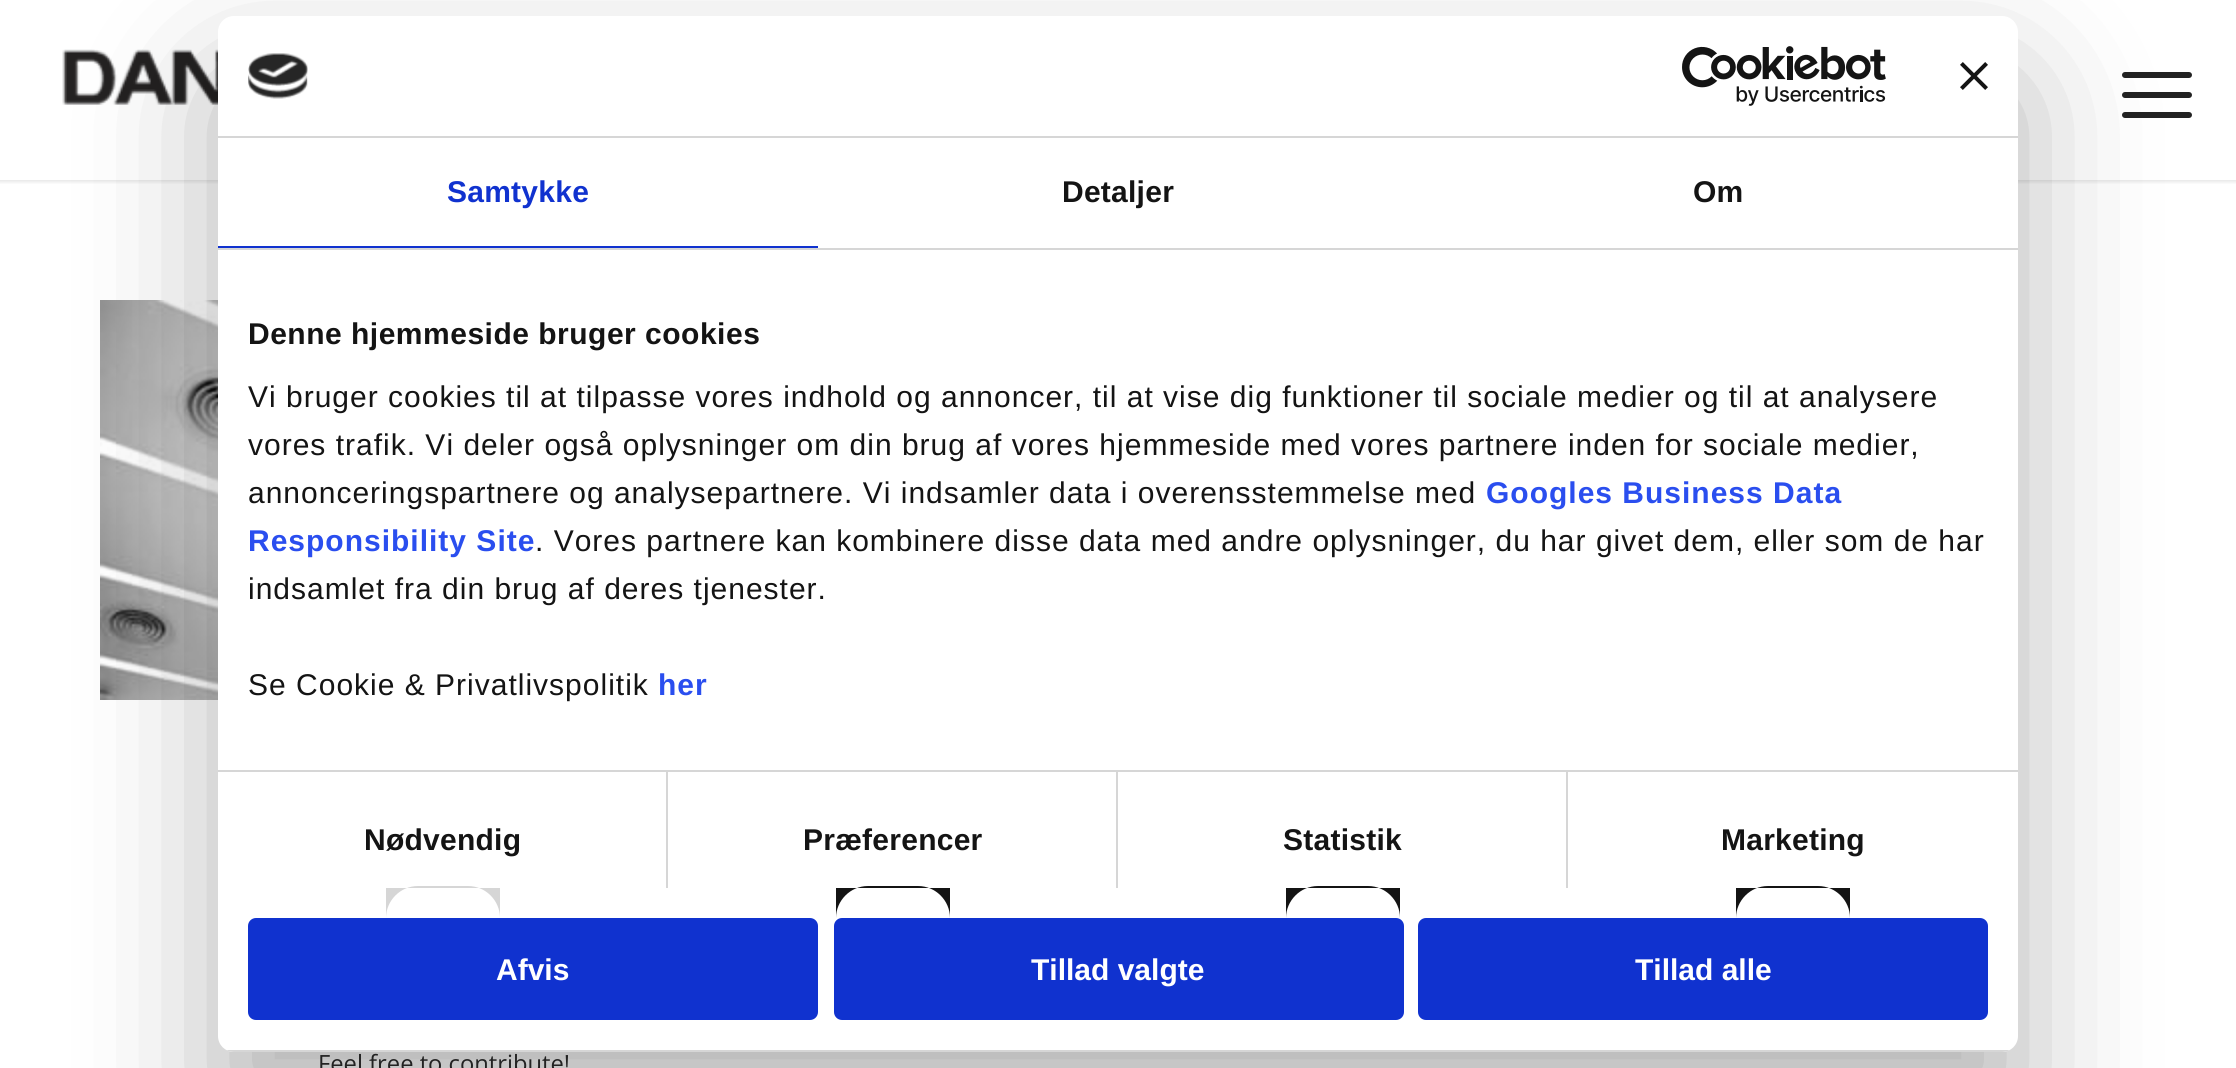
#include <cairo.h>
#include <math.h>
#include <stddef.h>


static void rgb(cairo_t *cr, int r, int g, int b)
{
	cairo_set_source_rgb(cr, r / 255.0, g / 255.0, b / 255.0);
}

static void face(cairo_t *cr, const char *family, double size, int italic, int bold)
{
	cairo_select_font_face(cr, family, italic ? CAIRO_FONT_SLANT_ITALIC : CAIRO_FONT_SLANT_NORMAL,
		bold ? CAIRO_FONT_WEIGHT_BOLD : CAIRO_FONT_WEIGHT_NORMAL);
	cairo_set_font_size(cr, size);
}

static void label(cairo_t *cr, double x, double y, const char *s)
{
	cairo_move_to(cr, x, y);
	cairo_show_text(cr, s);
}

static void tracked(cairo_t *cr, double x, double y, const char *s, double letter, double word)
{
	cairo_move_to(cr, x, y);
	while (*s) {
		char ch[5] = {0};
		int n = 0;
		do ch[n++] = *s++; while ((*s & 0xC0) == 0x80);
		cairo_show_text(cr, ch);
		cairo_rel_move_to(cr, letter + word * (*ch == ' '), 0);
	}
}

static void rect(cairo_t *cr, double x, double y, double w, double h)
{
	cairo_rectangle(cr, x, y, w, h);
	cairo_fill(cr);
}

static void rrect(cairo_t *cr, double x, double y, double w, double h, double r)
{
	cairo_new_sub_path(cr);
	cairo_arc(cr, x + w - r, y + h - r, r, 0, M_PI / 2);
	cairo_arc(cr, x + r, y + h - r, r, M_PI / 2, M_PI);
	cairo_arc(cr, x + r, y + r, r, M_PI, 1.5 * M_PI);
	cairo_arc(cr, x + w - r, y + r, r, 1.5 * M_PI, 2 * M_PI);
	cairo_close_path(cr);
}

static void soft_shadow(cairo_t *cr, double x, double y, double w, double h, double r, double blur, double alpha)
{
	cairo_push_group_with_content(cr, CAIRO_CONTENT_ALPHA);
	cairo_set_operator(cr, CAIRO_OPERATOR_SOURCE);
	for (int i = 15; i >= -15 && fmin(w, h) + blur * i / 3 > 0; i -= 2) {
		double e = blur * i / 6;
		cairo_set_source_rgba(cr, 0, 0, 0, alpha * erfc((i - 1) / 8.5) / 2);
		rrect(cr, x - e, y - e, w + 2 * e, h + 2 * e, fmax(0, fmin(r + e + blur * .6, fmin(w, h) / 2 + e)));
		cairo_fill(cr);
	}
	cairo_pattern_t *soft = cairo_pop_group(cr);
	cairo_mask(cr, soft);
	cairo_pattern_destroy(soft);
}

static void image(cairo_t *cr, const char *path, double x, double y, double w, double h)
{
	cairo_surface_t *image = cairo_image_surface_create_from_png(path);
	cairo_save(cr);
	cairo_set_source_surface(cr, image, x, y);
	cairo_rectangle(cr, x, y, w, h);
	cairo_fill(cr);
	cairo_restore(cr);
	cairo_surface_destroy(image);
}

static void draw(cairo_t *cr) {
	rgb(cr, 255, 255, 255);
	cairo_paint(cr);
	cairo_save(cr);
	cairo_rectangle(cr, 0, 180, 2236, 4);
	cairo_clip(cr);
	rgb(cr, 0, 0, 0);
	soft_shadow(cr, -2, -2, 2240, 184, 0, 2, 0.1);
	cairo_restore(cr);
	image(cr, "image3.png", 62, 49, 156, 56);
	rgb(cr, 34, 34, 34);
	rrect(cr, 2122, 92, 70, 6, 3);
	cairo_fill(cr);
	rrect(cr, 2122, 72, 70, 6, 3);
	cairo_fill(cr);
	rrect(cr, 2122, 112, 70, 6, 3);
	cairo_fill(cr);
	image(cr, "image4.png", 100, 300, 118, 400);
	rgb(cr, 0, 0, 0);
	soft_shadow(cr, 218, 80, 1800, 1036, 16, 68, 0.3);
	rgb(cr, 255, 255, 255);
	rrect(cr, 218, 16, 1800, 1036, 16);
	cairo_fill(cr);
	rgb(cr, 214, 214, 214);
	rect(cr, 218, 136, 1800, 2);
	image(cr, "image0.png", 248, 53, 60, 46);
	image(cr, "image1.png", 1682, 46, 204, 60);
	image(cr, "image2.png", 1960, 62, 28, 28);
	rect(cr, 218, 248, 1800, 2);
	rgb(cr, 16, 50, 207);
	rect(cr, 218, 246, 600, 2);
	face(cr, "Liberation Sans", 30, 0, 1);
	tracked(cr, 447, 202, "Samtykke", 0.25, 0);
	rgb(cr, 20, 20, 20);
	tracked(cr, 1062, 202, "Detaljer", 0.25, 0);
	tracked(cr, 1693, 202, "Om", 0.25, 0);
	rgb(cr, 214, 214, 214);
	rect(cr, 218, 770, 1800, 2);
	rgb(cr, 20, 20, 20);
	tracked(cr, 248, 344, "Denne hjemmeside bruger cookies", 0.5, 0);
	face(cr, "Liberation Sans", 30, 0, 0);
	tracked(cr, 248, 407, "Vi bruger cookies til at tilpasse vores indhold og annoncer, til at vise dig funktioner til sociale medier og til at analysere", 1, 0);
	tracked(cr, 248, 455, "vores trafik. Vi deler også oplysninger om din brug af vores hjemmeside med vores partnere inden for sociale medier,", 1, 0);
	tracked(cr, 248, 503, "annonceringspartnere og analysepartnere. Vi indsamler data i overensstemmelse med", 1, 0);
	face(cr, "Liberation Sans", 30, 0, 1);
	rgb(cr, 42, 78, 239);
	tracked(cr, 1486, 503, "Googles Business Data", 1, 0);
	tracked(cr, 248, 551, "Responsibility Site", 1, 0);
	face(cr, "Liberation Sans", 30, 0, 0);
	rgb(cr, 20, 20, 20);
	tracked(cr, 535, 551, ". Vores partnere kan kombinere disse data med andre oplysninger, du har givet dem, eller som de har", 1, 0);
	tracked(cr, 248, 599, "indsamlet fra din brug af deres tjenester.", 1, 0);
	tracked(cr, 248, 695, "Se Cookie & Privatlivspolitik", 1, 0);
	face(cr, "Liberation Sans", 30, 0, 1);
	rgb(cr, 42, 78, 239);
	tracked(cr, 658, 695, "her", 1, 0);
	rgb(cr, 214, 214, 214);
	rect(cr, 666, 772, 2, 116);
	rgb(cr, 20, 20, 20);
	tracked(cr, 364, 850, "Nødvendig", 0.25, 0);
	rgb(cr, 214, 214, 214);
	cairo_new_path(cr);
	cairo_move_to(cr, 418, 886);
	cairo_line_to(cr, 468, 886);
	cairo_curve_to(cr, 485.5, 886, 500, 900.5, 500, 918);
	cairo_line_to(cr, 500, 888);
	cairo_line_to(cr, 386, 888);
	cairo_line_to(cr, 386, 918);
	cairo_curve_to(cr, 386, 900.5, 400.5, 886, 418, 886);
	cairo_close_path(cr);
	cairo_fill(cr);
	rect(cr, 1116, 772, 2, 116);
	rgb(cr, 20, 20, 20);
	tracked(cr, 803, 850, "Præferencer", 0.25, 0);
	cairo_new_path(cr);
	cairo_move_to(cr, 868, 886);
	cairo_line_to(cr, 918, 886);
	cairo_curve_to(cr, 935.5, 886, 950, 900.5, 950, 918);
	cairo_line_to(cr, 950, 888);
	cairo_line_to(cr, 836, 888);
	cairo_line_to(cr, 836, 918);
	cairo_curve_to(cr, 836, 900.5, 850.5, 886, 868, 886);
	cairo_close_path(cr);
	cairo_fill(cr);
	rgb(cr, 214, 214, 214);
	rect(cr, 1566, 772, 2, 116);
	rgb(cr, 20, 20, 20);
	tracked(cr, 1283, 850, "Statistik", 0.25, 0);
	cairo_new_path(cr);
	cairo_move_to(cr, 1318, 886);
	cairo_line_to(cr, 1368, 886);
	cairo_curve_to(cr, 1385.5, 886, 1400, 900.5, 1400, 918);
	cairo_line_to(cr, 1400, 888);
	cairo_line_to(cr, 1286, 888);
	cairo_line_to(cr, 1286, 918);
	cairo_curve_to(cr, 1286, 900.5, 1300.5, 886, 1318, 886);
	cairo_close_path(cr);
	cairo_fill(cr);
	tracked(cr, 1721, 850, "Marketing", 0.25, 0);
	cairo_new_path(cr);
	cairo_move_to(cr, 1768, 886);
	cairo_line_to(cr, 1818, 886);
	cairo_curve_to(cr, 1835.5, 886, 1850, 900.5, 1850, 918);
	cairo_line_to(cr, 1850, 888);
	cairo_line_to(cr, 1736, 888);
	cairo_line_to(cr, 1736, 918);
	cairo_curve_to(cr, 1736, 900.5, 1750.5, 886, 1768, 886);
	cairo_close_path(cr);
	cairo_fill(cr);
	cairo_save(cr);
	rrect(cr, 218, 16, 1800, 1036, 16);
	cairo_clip(cr);
	rgb(cr, 214, 214, 214);
	rect(cr, 218, 1050, 1800, 2);
	cairo_restore(cr);
	rgb(cr, 16, 50, 207);
	rrect(cr, 250, 920, 566, 98, 6);
	cairo_fill_preserve(cr);
	cairo_set_line_width(cr, 4);
	cairo_stroke(cr);
	rgb(cr, 255, 255, 255);
	label(cr, 496, 980, "Afvis");
	rgb(cr, 16, 50, 207);
	rrect(cr, 836, 920, 566, 98, 6);
	cairo_fill_preserve(cr);
	cairo_stroke(cr);
	rgb(cr, 255, 255, 255);
	label(cr, 1031, 980, "Tillad valgte");
	rgb(cr, 16, 50, 207);
	rrect(cr, 1420, 920, 566, 98, 6);
	cairo_fill_preserve(cr);
	cairo_stroke(cr);
	rgb(cr, 255, 255, 255);
	label(cr, 1635, 980, "Tillad alle");
	face(cr, "Open Sans", 23.75, 0, 0);
	rgb(cr, 34, 34, 34);
	label(cr, 318, 1072, "Feel free to contribute!");
}

int main(void) {
	cairo_surface_t *surface = cairo_image_surface_create(CAIRO_FORMAT_RGB24, 2236, 1068);
	cairo_t *cr = cairo_create(surface);
	cairo_font_options_t *options = cairo_font_options_create();
	cairo_font_options_set_hint_metrics(options, CAIRO_HINT_METRICS_OFF);
	cairo_font_options_set_hint_style(options, CAIRO_HINT_STYLE_NONE);
	cairo_set_font_options(cr, options);
	cairo_set_miter_limit(cr, 4);
	draw(cr);
	cairo_surface_write_to_png(surface, "render.png");
	cairo_font_options_destroy(options);
	cairo_destroy(cr);
	cairo_surface_destroy(surface);
	return 0;
}
